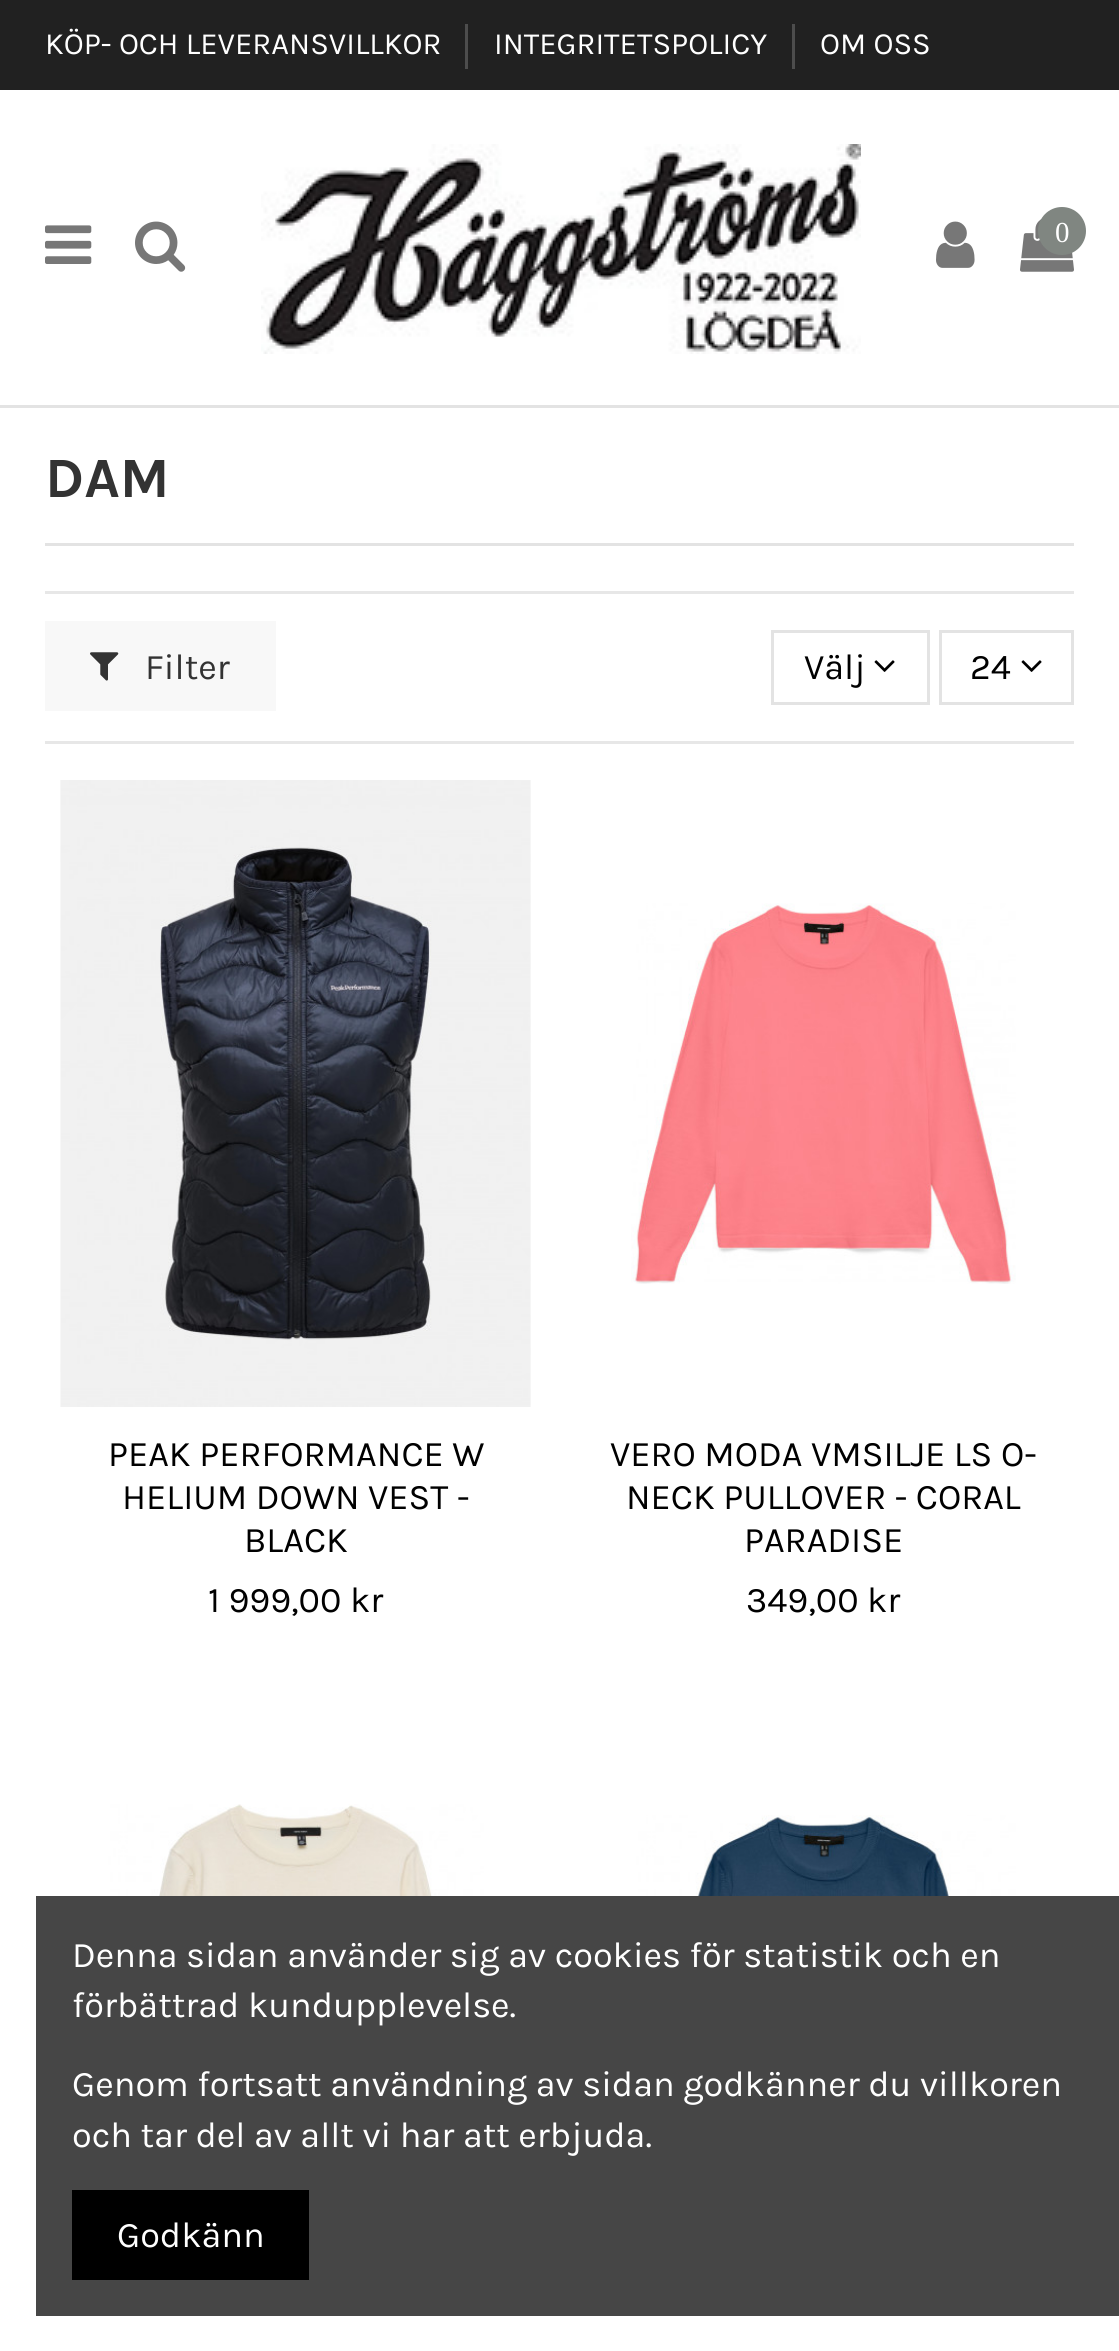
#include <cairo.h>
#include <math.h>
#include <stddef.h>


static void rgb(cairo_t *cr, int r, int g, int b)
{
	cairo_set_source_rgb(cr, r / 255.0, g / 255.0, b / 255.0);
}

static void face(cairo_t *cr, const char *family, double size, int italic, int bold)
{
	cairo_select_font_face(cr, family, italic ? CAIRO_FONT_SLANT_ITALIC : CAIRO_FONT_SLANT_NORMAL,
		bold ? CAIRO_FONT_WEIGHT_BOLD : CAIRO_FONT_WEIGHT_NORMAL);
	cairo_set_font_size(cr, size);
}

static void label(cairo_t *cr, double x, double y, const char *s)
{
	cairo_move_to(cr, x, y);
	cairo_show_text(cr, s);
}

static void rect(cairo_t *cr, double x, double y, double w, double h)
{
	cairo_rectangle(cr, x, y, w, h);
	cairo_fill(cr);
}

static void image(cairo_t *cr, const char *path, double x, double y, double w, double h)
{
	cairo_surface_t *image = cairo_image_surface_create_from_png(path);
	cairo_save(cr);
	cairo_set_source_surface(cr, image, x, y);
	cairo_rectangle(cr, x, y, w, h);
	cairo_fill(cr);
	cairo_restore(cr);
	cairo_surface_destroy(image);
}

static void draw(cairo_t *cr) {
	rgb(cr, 255, 255, 255);
	cairo_paint(cr);
	rgb(cr, 33, 33, 33);
	rect(cr, 0, 0, 1119, 90);
	face(cr, "Karla", 30.9, 0, 0);
	rgb(cr, 255, 255, 255);
	label(cr, 45, 54, "KÖP- OCH LEVERANSVILLKOR");
	rgb(cr, 77, 77, 77);
	rect(cr, 465, 24, 3, 45);
	rgb(cr, 255, 255, 255);
	label(cr, 494, 54, "INTEGRITETSPOLICY");
	rgb(cr, 77, 77, 77);
	rect(cr, 792, 24, 3, 45);
	rgb(cr, 255, 255, 255);
	label(cr, 820, 54, "OM OSS");
	rgb(cr, 227, 227, 227);
	rect(cr, 0, 405, 1119, 3);
	image(cr, "image0.png", 45, 225, 47, 39);
	image(cr, "image1.png", 135, 221, 51, 51);
	image(cr, "image2.png", 261, 144, 600, 210);
	image(cr, "image3.png", 936, 221, 39, 47);
	image(cr, "image4.png", 1020, 219, 54, 53);
	rgb(cr, 128, 134, 129);
	cairo_arc(cr, 1062, 231, 24, 0, 2 * M_PI);
	cairo_fill(cr);
	face(cr, "Liberation Serif", 29, 0, 0);
	rgb(cr, 255, 255, 255);
	label(cr, 1055, 242, "0");
	rgb(cr, 227, 227, 227);
	rect(cr, 45, 543, 1029, 3);
	face(cr, "Karla", 57, 0, 1);
	rgb(cr, 51, 51, 51);
	label(cr, 45, 497, "DAM");
	rgb(cr, 231, 231, 231);
	rect(cr, 45, 591, 1029, 3);
	rect(cr, 45, 741, 1029, 3);
	rgb(cr, 248, 248, 248);
	rect(cr, 45, 621, 231, 90);
	image(cr, "image5.png", 90, 652, 29, 29);
	face(cr, "Karla", 36, 0, 0);
	rgb(cr, 51, 51, 51);
	label(cr, 145, 679, "Filter");
	cairo_rectangle(cr, 772.5, 631.5, 156, 72);
	rgb(cr, 227, 227, 227);
	cairo_set_line_width(cr, 3);
	cairo_stroke(cr);
	rgb(cr, 0, 0, 0);
	label(cr, 804, 679, "Välj");
	image(cr, "image6.png", 874, 660, 21, 12);
	cairo_rectangle(cr, 940.5, 631.5, 132, 72);
	rgb(cr, 227, 227, 227);
	cairo_stroke(cr);
	rgb(cr, 0, 0, 0);
	label(cr, 970, 679, "24");
	image(cr, "image6.png", 1021, 660, 21, 12);
	image(cr, "image7.png", 60, 780, 471, 627);
	label(cr, 108, 1466, "PEAK PERFORMANCE W");
	label(cr, 122, 1509, "HELIUM DOWN VEST -");
	label(cr, 244, 1552, "BLACK");
	label(cr, 208, 1612, "1 999,00 kr");
	image(cr, "image8.png", 631, 903, 385, 381);
	label(cr, 610, 1466, "VERO MODA VMSILJE LS O-");
	label(cr, 626, 1509, "NECK PULLOVER - CORAL");
	label(cr, 744, 1552, "PARADISE");
	label(cr, 746, 1612, "349,00 kr");
	image(cr, "image9.png", 103, 1804, 381, 92);
	image(cr, "image10.png", 631, 1815, 385, 81);
	rgb(cr, 70, 70, 70);
	rect(cr, 36, 1896, 1083, 420);
	rgb(cr, 255, 255, 255);
	label(cr, 72, 1967, "Denna sidan använder sig av cookies för statistik och en");
	label(cr, 72, 2017, "förbättrad kundupplevelse.");
	label(cr, 72, 2096, "Genom fortsatt användning av sidan godkänner du villkoren");
	label(cr, 72, 2147, "och tar del av allt vi har att erbjuda.");
	rgb(cr, 0, 0, 0);
	rect(cr, 72, 2190, 237, 90);
	rgb(cr, 255, 255, 255);
	label(cr, 117, 2247, "Godkänn");
}

int main(void) {
	cairo_surface_t *surface = cairo_image_surface_create(CAIRO_FORMAT_RGB24, 1119, 2351);
	cairo_t *cr = cairo_create(surface);
	cairo_font_options_t *options = cairo_font_options_create();
	cairo_font_options_set_hint_metrics(options, CAIRO_HINT_METRICS_OFF);
	cairo_font_options_set_hint_style(options, CAIRO_HINT_STYLE_NONE);
	cairo_set_font_options(cr, options);
	cairo_set_miter_limit(cr, 4);
	draw(cr);
	cairo_surface_write_to_png(surface, "render.png");
	cairo_font_options_destroy(options);
	cairo_destroy(cr);
	cairo_surface_destroy(surface);
	return 0;
}
